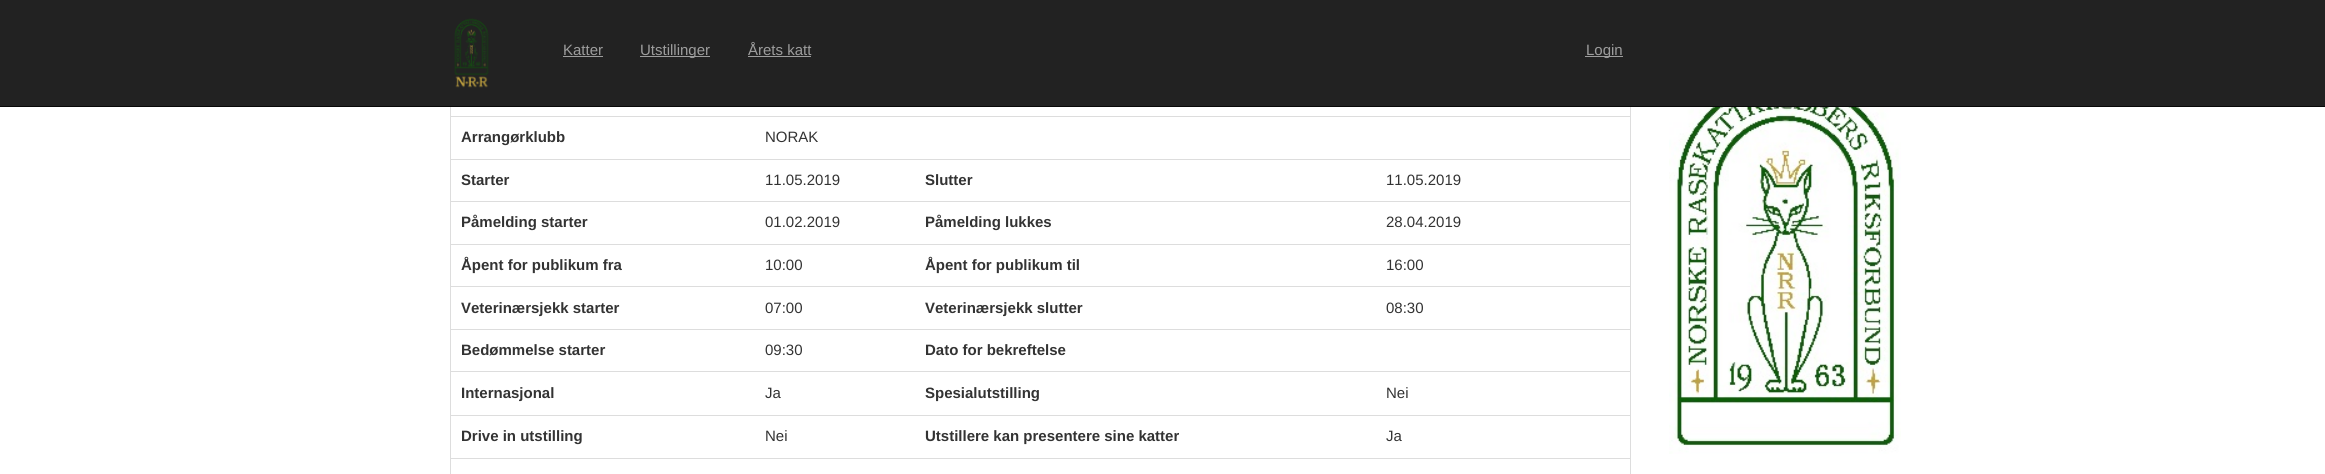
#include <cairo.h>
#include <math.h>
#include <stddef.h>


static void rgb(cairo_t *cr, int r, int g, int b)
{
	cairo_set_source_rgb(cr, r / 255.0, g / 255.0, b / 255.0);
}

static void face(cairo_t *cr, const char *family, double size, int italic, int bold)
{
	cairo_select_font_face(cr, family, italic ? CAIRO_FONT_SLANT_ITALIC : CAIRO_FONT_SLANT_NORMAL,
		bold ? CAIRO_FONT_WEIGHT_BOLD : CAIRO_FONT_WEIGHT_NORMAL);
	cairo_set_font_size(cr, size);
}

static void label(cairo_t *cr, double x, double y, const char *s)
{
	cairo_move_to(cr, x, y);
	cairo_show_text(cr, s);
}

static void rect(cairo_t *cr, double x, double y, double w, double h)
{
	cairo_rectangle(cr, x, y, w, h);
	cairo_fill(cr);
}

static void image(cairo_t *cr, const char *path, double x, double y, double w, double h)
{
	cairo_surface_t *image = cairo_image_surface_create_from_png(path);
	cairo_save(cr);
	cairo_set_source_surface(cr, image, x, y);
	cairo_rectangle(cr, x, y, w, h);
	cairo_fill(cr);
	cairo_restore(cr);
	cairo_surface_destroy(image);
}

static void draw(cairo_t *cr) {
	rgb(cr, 255, 255, 255);
	cairo_paint(cr);
	cairo_rectangle(cr, 450.5, 76.5, 1180, 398);
	rgb(cr, 221, 221, 221);
	cairo_set_line_width(cr, 1);
	cairo_stroke(cr);
	rgb(cr, 34, 34, 34);
	rect(cr, 0, 0, 2325, 106);
	rgb(cr, 8, 8, 8);
	rect(cr, 0, 106, 2325, 1);
	image(cr, "image0.png", 454, 18, 35, 70);
	face(cr, "Liberation Sans", 15, 0, 0);
	rgb(cr, 157, 157, 157);
	label(cr, 563, 55, "Katter");
	rect(cr, 563, 56, 40, 1);
	rect(cr, 640, 56, 70, 1);
	label(cr, 640, 55, "Utstillinger");
	label(cr, 748, 55, "Årets katt");
	rect(cr, 748, 56, 63, 1);
	rect(cr, 1585, 56, 38, 1);
	label(cr, 1586, 55, "Login");
	face(cr, "Liberation Sans", 15, 0, 1);
	rgb(cr, 51, 51, 51);
	label(cr, 461, 142, "Arrangørklubb");
	rgb(cr, 221, 221, 221);
	rect(cr, 451, 116, 1180, 1);
	face(cr, "Liberation Sans", 15, 0, 0);
	rgb(cr, 51, 51, 51);
	label(cr, 765, 142, "NORAK");
	face(cr, "Liberation Sans", 15, 0, 1);
	label(cr, 461, 185, "Starter");
	face(cr, "Liberation Sans", 15, 0, 0);
	label(cr, 765, 185, "11.05.2019");
	face(cr, "Liberation Sans", 15, 0, 1);
	label(cr, 925, 185, "Slutter");
	rgb(cr, 221, 221, 221);
	rect(cr, 451, 159, 1180, 1);
	face(cr, "Liberation Sans", 15, 0, 0);
	rgb(cr, 51, 51, 51);
	label(cr, 1386, 185, "11.05.2019");
	face(cr, "Liberation Sans", 15, 0, 1);
	label(cr, 461, 227, "Påmelding starter");
	face(cr, "Liberation Sans", 15, 0, 0);
	label(cr, 765, 227, "01.02.2019");
	face(cr, "Liberation Sans", 15, 0, 1);
	label(cr, 925, 227, "Påmelding lukkes");
	rgb(cr, 221, 221, 221);
	rect(cr, 451, 201, 1180, 1);
	face(cr, "Liberation Sans", 15, 0, 0);
	rgb(cr, 51, 51, 51);
	label(cr, 1386, 227, "28.04.2019");
	face(cr, "Liberation Sans", 15, 0, 1);
	label(cr, 461, 270, "Åpent for publikum fra");
	face(cr, "Liberation Sans", 15, 0, 0);
	label(cr, 765, 270, "10:00");
	face(cr, "Liberation Sans", 15, 0, 1);
	label(cr, 925, 270, "Åpent for publikum til");
	rgb(cr, 221, 221, 221);
	rect(cr, 451, 244, 1180, 1);
	face(cr, "Liberation Sans", 15, 0, 0);
	rgb(cr, 51, 51, 51);
	label(cr, 1386, 270, "16:00");
	face(cr, "Liberation Sans", 15, 0, 1);
	label(cr, 461, 313, "Veterinærsjekk starter");
	face(cr, "Liberation Sans", 15, 0, 0);
	label(cr, 765, 313, "07:00");
	face(cr, "Liberation Sans", 15, 0, 1);
	label(cr, 925, 313, "Veterinærsjekk slutter");
	rgb(cr, 221, 221, 221);
	rect(cr, 451, 286, 1180, 1);
	face(cr, "Liberation Sans", 15, 0, 0);
	rgb(cr, 51, 51, 51);
	label(cr, 1386, 313, "08:30");
	rgb(cr, 221, 221, 221);
	rect(cr, 451, 329, 1180, 1);
	face(cr, "Liberation Sans", 15, 0, 1);
	rgb(cr, 51, 51, 51);
	label(cr, 461, 355, "Bedømmelse starter");
	face(cr, "Liberation Sans", 15, 0, 0);
	label(cr, 765, 355, "09:30");
	face(cr, "Liberation Sans", 15, 0, 1);
	label(cr, 925, 355, "Dato for bekreftelse");
	label(cr, 461, 398, "Internasjonal");
	face(cr, "Liberation Sans", 15, 0, 0);
	label(cr, 765, 398, "Ja");
	face(cr, "Liberation Sans", 15, 0, 1);
	label(cr, 925, 398, "Spesialutstilling");
	rgb(cr, 221, 221, 221);
	rect(cr, 451, 371, 1180, 1);
	face(cr, "Liberation Sans", 15, 0, 0);
	rgb(cr, 51, 51, 51);
	label(cr, 1386, 398, "Nei");
	face(cr, "Liberation Sans", 15, 0, 1);
	label(cr, 461, 441, "Drive in utstilling");
	face(cr, "Liberation Sans", 15, 0, 0);
	label(cr, 765, 441, "Nei");
	face(cr, "Liberation Sans", 15, 0, 1);
	label(cr, 925, 441, "Utstillere kan presentere sine katter");
	rgb(cr, 221, 221, 221);
	rect(cr, 451, 415, 1180, 1);
	face(cr, "Liberation Sans", 15, 0, 0);
	rgb(cr, 51, 51, 51);
	label(cr, 1386, 441, "Ja");
	rgb(cr, 221, 221, 221);
	rect(cr, 451, 458, 1180, 1);
	image(cr, "image1.png", 1669, 107, 232, 347);
}

int main(void) {
	cairo_surface_t *surface = cairo_image_surface_create(CAIRO_FORMAT_RGB24, 2325, 474);
	cairo_t *cr = cairo_create(surface);
	cairo_font_options_t *options = cairo_font_options_create();
	cairo_font_options_set_hint_metrics(options, CAIRO_HINT_METRICS_OFF);
	cairo_font_options_set_hint_style(options, CAIRO_HINT_STYLE_NONE);
	cairo_set_font_options(cr, options);
	cairo_set_miter_limit(cr, 4);
	draw(cr);
	cairo_surface_write_to_png(surface, "render.png");
	cairo_font_options_destroy(options);
	cairo_destroy(cr);
	cairo_surface_destroy(surface);
	return 0;
}
